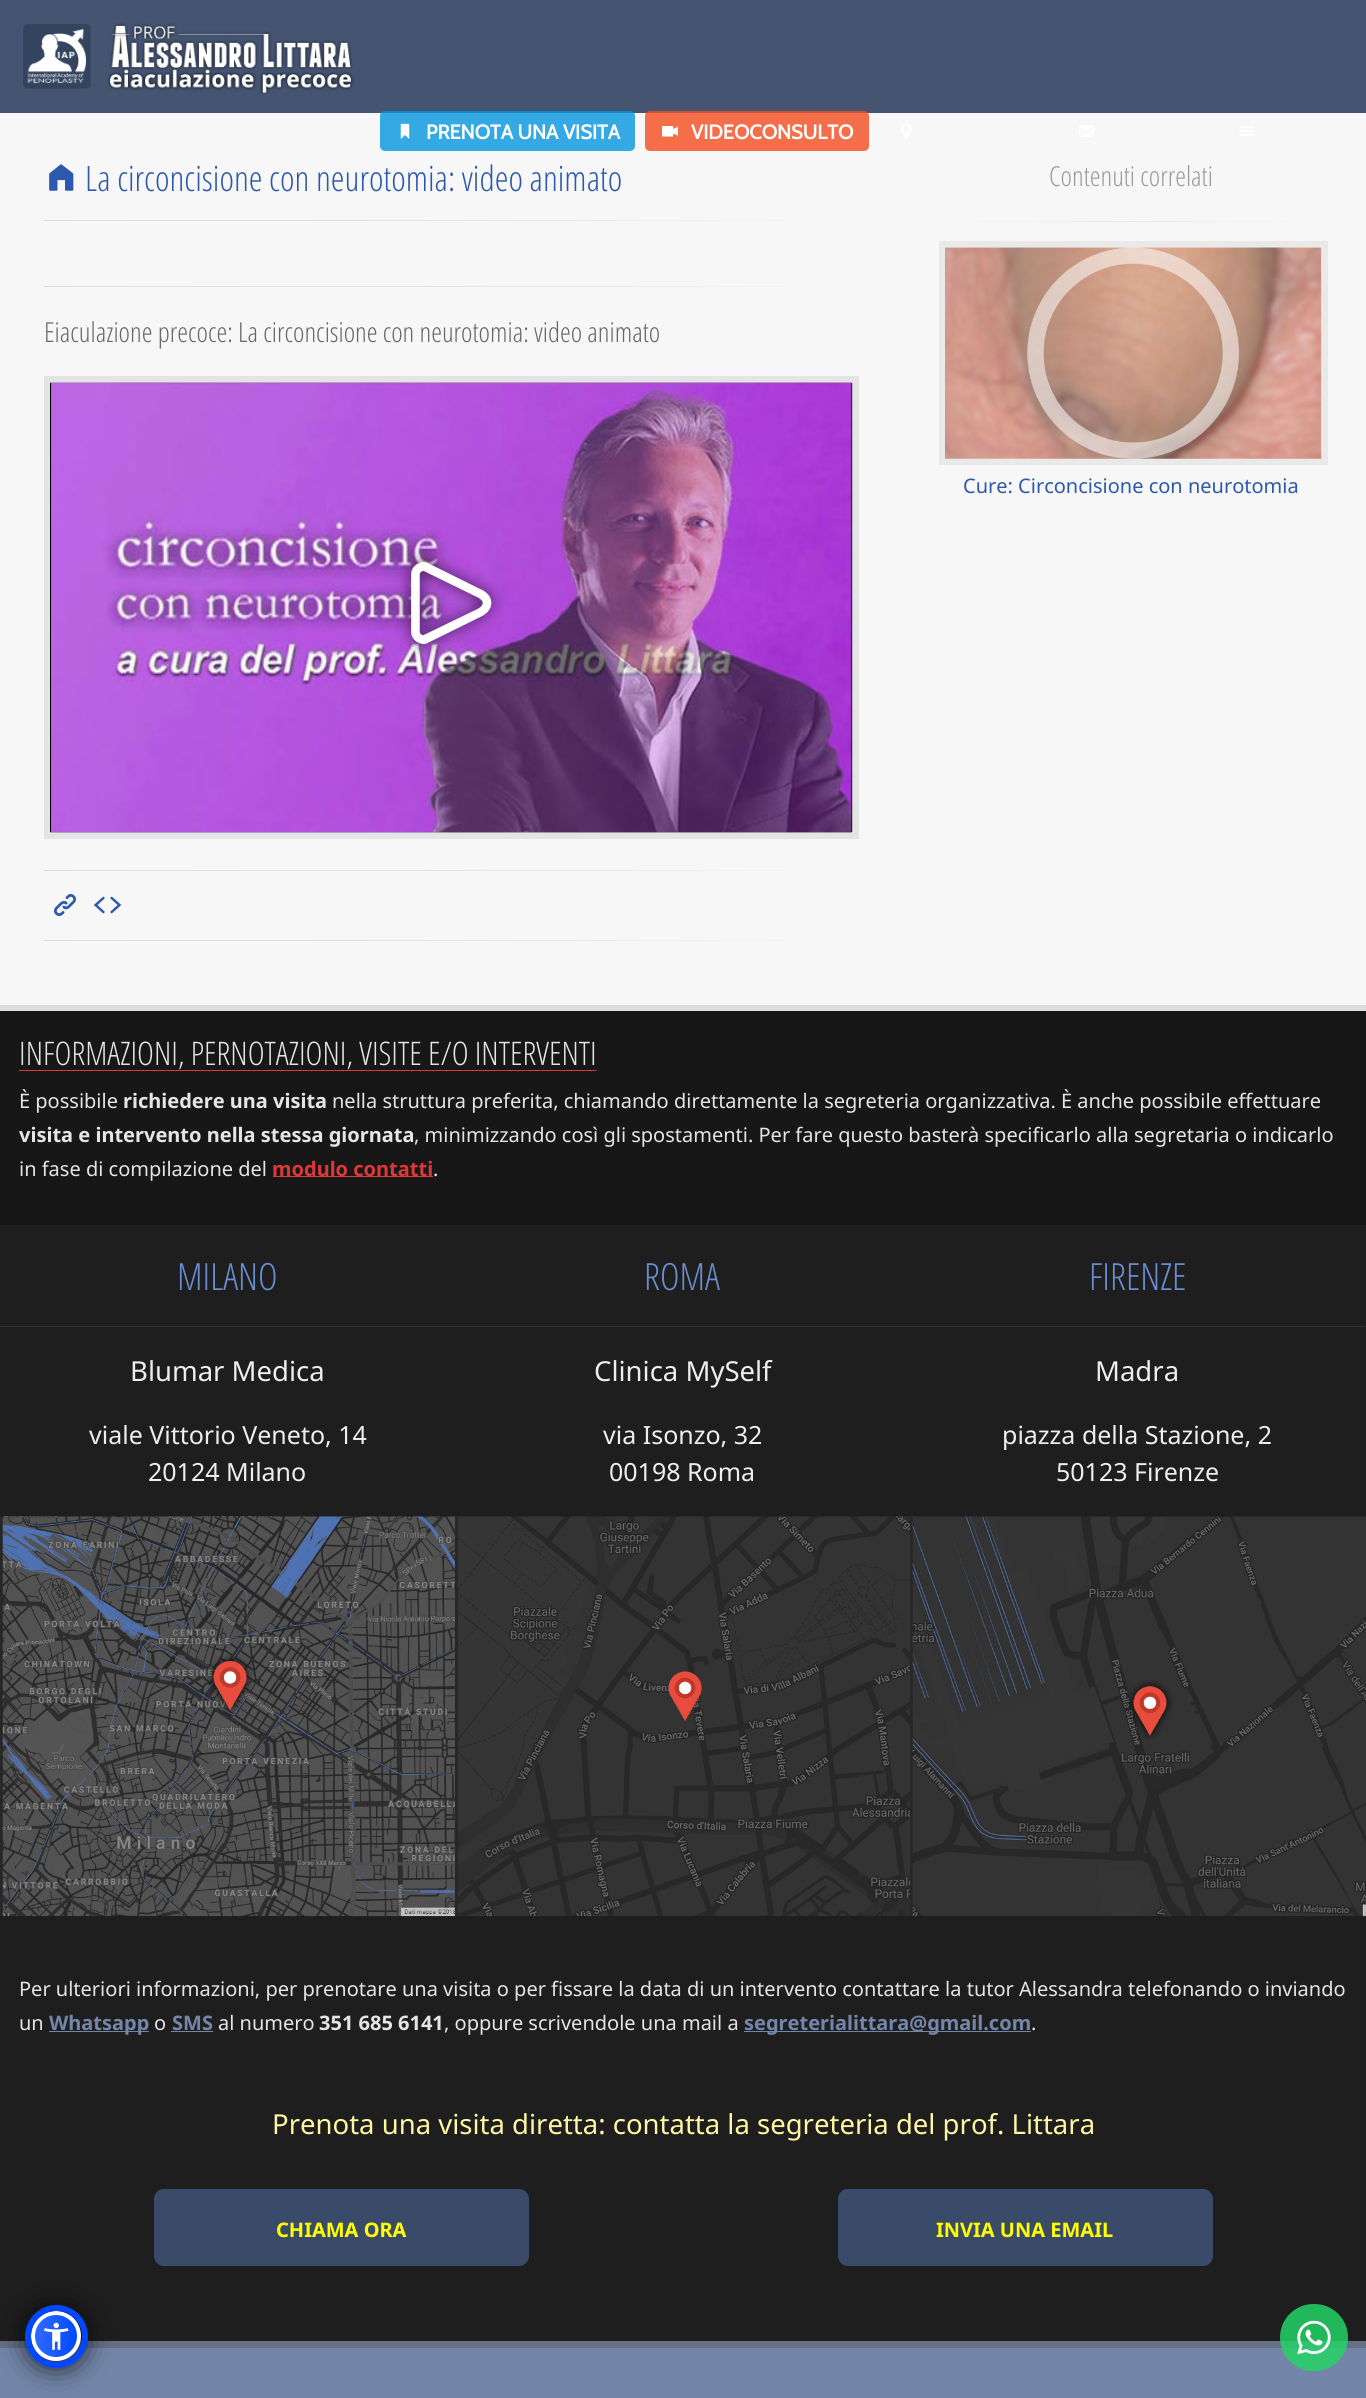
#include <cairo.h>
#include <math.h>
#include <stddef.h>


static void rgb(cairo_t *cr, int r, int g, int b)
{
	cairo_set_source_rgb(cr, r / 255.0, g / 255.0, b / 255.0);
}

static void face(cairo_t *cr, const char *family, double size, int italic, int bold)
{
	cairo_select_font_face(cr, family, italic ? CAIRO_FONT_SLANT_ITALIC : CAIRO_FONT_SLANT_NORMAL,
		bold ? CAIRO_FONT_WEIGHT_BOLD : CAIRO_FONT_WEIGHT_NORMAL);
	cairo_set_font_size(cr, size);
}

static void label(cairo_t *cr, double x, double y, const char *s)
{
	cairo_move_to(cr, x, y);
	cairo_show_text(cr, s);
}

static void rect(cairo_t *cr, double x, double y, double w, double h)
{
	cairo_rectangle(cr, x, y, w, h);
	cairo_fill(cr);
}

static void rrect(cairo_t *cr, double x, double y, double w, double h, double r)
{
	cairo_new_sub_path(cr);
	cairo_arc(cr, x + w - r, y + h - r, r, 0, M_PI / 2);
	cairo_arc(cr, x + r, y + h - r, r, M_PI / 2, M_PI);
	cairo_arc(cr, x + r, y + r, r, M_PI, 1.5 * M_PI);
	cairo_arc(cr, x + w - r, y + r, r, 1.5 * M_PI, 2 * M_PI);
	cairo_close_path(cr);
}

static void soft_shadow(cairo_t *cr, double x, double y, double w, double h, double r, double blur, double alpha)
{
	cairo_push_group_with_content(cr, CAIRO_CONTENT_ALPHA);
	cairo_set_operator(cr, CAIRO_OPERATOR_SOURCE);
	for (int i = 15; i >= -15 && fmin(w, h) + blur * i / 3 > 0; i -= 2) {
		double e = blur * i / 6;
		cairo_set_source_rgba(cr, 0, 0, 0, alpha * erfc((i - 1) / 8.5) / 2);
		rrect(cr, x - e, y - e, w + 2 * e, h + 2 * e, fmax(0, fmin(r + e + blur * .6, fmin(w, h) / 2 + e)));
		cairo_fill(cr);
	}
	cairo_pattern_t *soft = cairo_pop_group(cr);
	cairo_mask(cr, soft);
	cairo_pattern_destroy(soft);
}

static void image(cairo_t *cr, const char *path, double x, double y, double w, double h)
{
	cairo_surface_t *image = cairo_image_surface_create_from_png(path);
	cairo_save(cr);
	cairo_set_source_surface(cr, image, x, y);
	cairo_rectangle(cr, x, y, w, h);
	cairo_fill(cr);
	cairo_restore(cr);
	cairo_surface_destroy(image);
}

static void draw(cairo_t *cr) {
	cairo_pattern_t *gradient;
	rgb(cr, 247, 247, 247);
	cairo_paint(cr);
	rgb(cr, 68, 84, 113);
	rect(cr, 0, 0, 1366, 113);
	image(cr, "image0.png", 23, 24, 68, 65);
	image(cr, "image1.png", 107, 23, 247, 71);
	cairo_set_source_rgba(cr, 0.02, 0.588, 0.871, 0.8);
	rrect(cr, 380, 111, 255, 40, 5);
	cairo_fill(cr);
	image(cr, "image2.png", 400, 123, 10, 16);
	face(cr, "Cabin", 20, 0, 1);
	rgb(cr, 255, 255, 255);
	label(cr, 426, 139, "PRENOTA UNA VISITA");
	cairo_set_source_rgba(cr, 0.961, 0.302, 0.125, 0.8);
	rrect(cr, 645, 111, 224, 40, 5);
	cairo_fill(cr);
	image(cr, "image3.png", 662, 126, 16, 11);
	rgb(cr, 255, 255, 255);
	label(cr, 691, 139, "VIDEOCONSULTO");
	image(cr, "image4.png", 901, 123, 11, 16);
	image(cr, "image5.png", 1079, 125, 15, 12);
	image(cr, "image6.png", 1239, 126, 14, 10);
	rgb(cr, 222, 222, 222);
	rect(cr, 0, 1005, 1366, 6);
	image(cr, "image7.png", 49, 164, 25, 27);
	face(cr, "Open Sans Condensed Light", 35, 0, 0);
	rgb(cr, 45, 89, 172);
	label(cr, 85, 191, "La circoncisione con neurotomia: video animato");
	gradient = cairo_pattern_create_linear(44, 221, 863, 221);
	cairo_pattern_add_color_stop_rgba(gradient, 0, 0.867, 0.867, 0.867, 1);
	cairo_pattern_add_color_stop_rgba(gradient, 0.5, 0.894, 0.894, 0.894, 1);
	cairo_pattern_add_color_stop_rgba(gradient, 1, 0.969, 0.969, 0.969, 1);
	cairo_set_source(cr, gradient);
	cairo_pattern_destroy(gradient);
	rect(cr, 44, 220, 765, 1);
	gradient = cairo_pattern_create_linear(44, 287, 863, 287);
	cairo_pattern_add_color_stop_rgba(gradient, 0, 0.867, 0.867, 0.867, 1);
	cairo_pattern_add_color_stop_rgba(gradient, 0.5, 0.894, 0.894, 0.894, 1);
	cairo_pattern_add_color_stop_rgba(gradient, 1, 0.969, 0.969, 0.969, 1);
	cairo_set_source(cr, gradient);
	cairo_pattern_destroy(gradient);
	rect(cr, 44, 286, 765, 1);
	face(cr, "Open Sans Condensed Light", 27.5, 0, 0);
	rgb(cr, 102, 102, 102);
	label(cr, 44, 342, "Eiaculazione precoce: La circoncisione con neurotomia: video animato");
	cairo_rectangle(cr, 47, 379, 809, 457);
	rgb(cr, 228, 228, 228);
	cairo_set_line_width(cr, 6);
	cairo_stroke(cr);
	image(cr, "image8.png", 50, 382, 803, 451);
	gradient = cairo_pattern_create_linear(44, 871, 863, 871);
	cairo_pattern_add_color_stop_rgba(gradient, 0, 0.867, 0.867, 0.867, 1);
	cairo_pattern_add_color_stop_rgba(gradient, 0.5, 0.894, 0.894, 0.894, 1);
	cairo_pattern_add_color_stop_rgba(gradient, 1, 0.969, 0.969, 0.969, 1);
	cairo_set_source(cr, gradient);
	cairo_pattern_destroy(gradient);
	rect(cr, 44, 870, 765, 1);
	image(cr, "image9.png", 54, 894, 22, 22);
	image(cr, "image10.png", 93, 896, 29, 18);
	gradient = cairo_pattern_create_linear(44, 941, 863, 941);
	cairo_pattern_add_color_stop_rgba(gradient, 0, 0.867, 0.867, 0.867, 1);
	cairo_pattern_add_color_stop_rgba(gradient, 0.5, 0.894, 0.894, 0.894, 1);
	cairo_pattern_add_color_stop_rgba(gradient, 1, 0.969, 0.969, 0.969, 1);
	cairo_set_source(cr, gradient);
	cairo_pattern_destroy(gradient);
	rect(cr, 44, 940, 765, 1);
	rgb(cr, 153, 153, 153);
	label(cr, 1049, 186, "Contenuti correlati");
	gradient = cairo_pattern_create_linear(939, 222, 1323, 222);
	cairo_pattern_add_color_stop_rgba(gradient, 0, 0.969, 0.969, 0.969, 1);
	cairo_pattern_add_color_stop_rgba(gradient, 0.5, 0.914, 0.914, 0.914, 1);
	cairo_pattern_add_color_stop_rgba(gradient, 1, 0.969, 0.969, 0.969, 1);
	cairo_set_source(cr, gradient);
	cairo_pattern_destroy(gradient);
	rect(cr, 973, 221, 316, 1);
	cairo_rectangle(cr, 942, 244, 383, 218);
	rgb(cr, 233, 233, 233);
	cairo_stroke(cr);
	image(cr, "image11.png", 945, 247, 377, 212);
	face(cr, "Noto Sans", 20, 0, 0);
	rgb(cr, 45, 89, 172);
	label(cr, 963, 493, "Cure: Circoncisione con neurotomia");
	rgb(cr, 30, 30, 30);
	rect(cr, 0, 1225, 1366, 1116);
	rgb(cr, 100, 112, 134);
	rect(cr, 0, 2341, 1366, 7);
	rgb(cr, 23, 23, 23);
	rect(cr, 0, 1011, 1366, 214);
	rgb(cr, 221, 55, 55);
	rect(cr, 19, 1070, 577, 1);
	face(cr, "Open Sans Condensed Light", 32.5, 0, 0);
	rgb(cr, 229, 229, 229);
	label(cr, 19, 1065, "INFORMAZIONI, PERNOTAZIONI, VISITE E/O INTERVENTI");
	face(cr, "Noto Sans", 20, 0, 0);
	label(cr, 19, 1108, "È possibile");
	face(cr, "Noto Sans", 20, 0, 1);
	label(cr, 123, 1108, "richiedere una visita");
	face(cr, "Noto Sans", 20, 0, 0);
	label(cr, 332, 1108, "nella struttura preferita, chiamando direttamente la segreteria organizzativa. È anche possibile effettuare");
	face(cr, "Noto Sans", 20, 0, 1);
	label(cr, 19, 1142, "visita e intervento nella stessa giornata");
	face(cr, "Noto Sans", 20, 0, 0);
	label(cr, 414, 1142, ", minimizzando così gli spostamenti. Per fare questo basterà specificarlo alla segretaria o indicarlo");
	label(cr, 19, 1176, "in fase di compilazione del");
	rgb(cr, 221, 55, 55);
	rect(cr, 273, 1176, 160, 1);
	face(cr, "Noto Sans", 20, 0, 1);
	label(cr, 272, 1176, "modulo contatti");
	face(cr, "Noto Sans", 20, 0, 0);
	rgb(cr, 229, 229, 229);
	label(cr, 433, 1176, ".");
	face(cr, "Open Sans Condensed Light", 37.5, 0, 0);
	rgb(cr, 106, 142, 209);
	label(cr, 177, 1290, "MILANO");
	rgb(cr, 48, 51, 56);
	rect(cr, 0, 1326, 1365, 1);
	face(cr, "Noto Sans", 27.5, 0, 0);
	rgb(cr, 238, 238, 238);
	label(cr, 130, 1381, "Blumar Medica");
	face(cr, "Noto Sans", 25, 0, 0);
	label(cr, 89, 1444, "viale Vittorio Veneto, 14");
	label(cr, 148, 1481, "20124 Milano");
	rgb(cr, 39, 39, 39);
	rect(cr, 0, 1516, 3, 400);
	image(cr, "image12.png", 2, 1516, 455, 401);
	rect(cr, 458, 1516, 3, 1);
	face(cr, "Open Sans Condensed Light", 37.5, 0, 0);
	rgb(cr, 106, 142, 209);
	label(cr, 644, 1290, "ROMA");
	face(cr, "Noto Sans", 27.5, 0, 0);
	rgb(cr, 238, 238, 238);
	label(cr, 594, 1381, "Clinica MySelf");
	face(cr, "Noto Sans", 25, 0, 0);
	label(cr, 603, 1444, "via Isonzo, 32");
	label(cr, 609, 1481, "00198 Roma");
	rgb(cr, 39, 39, 39);
	rect(cr, 455, 1516, 3, 400);
	image(cr, "image13.png", 458, 1516, 454, 401);
	rect(cr, 913, 1516, 3, 1);
	face(cr, "Open Sans Condensed Light", 37.5, 0, 0);
	rgb(cr, 106, 142, 209);
	label(cr, 1089, 1290, "FIRENZE");
	face(cr, "Noto Sans", 27.5, 0, 0);
	rgb(cr, 238, 238, 238);
	label(cr, 1095, 1381, "Madra");
	face(cr, "Noto Sans", 25, 0, 0);
	label(cr, 1002, 1444, "piazza della Stazione, 2");
	label(cr, 1056, 1481, "50123 Firenze");
	rgb(cr, 39, 39, 39);
	rect(cr, 910, 1516, 3, 400);
	image(cr, "image14.png", 912, 1516, 454, 401);
	face(cr, "Noto Sans", 20, 0, 0);
	rgb(cr, 229, 229, 229);
	label(cr, 19, 1996, "Per ulteriori informazioni, per prenotare una visita o per fissare la data di un intervento contattare la tutor Alessandra telefonando o inviando");
	label(cr, 19, 2030, "un");
	rgb(cr, 115, 134, 170);
	rect(cr, 49, 2031, 100, 1);
	face(cr, "Noto Sans", 20, 0, 1);
	label(cr, 49, 2030, "Whatsapp");
	face(cr, "Noto Sans", 20, 0, 0);
	rgb(cr, 229, 229, 229);
	label(cr, 154, 2030, "o");
	face(cr, "Noto Sans", 20, 0, 1);
	rgb(cr, 115, 134, 170);
	label(cr, 172, 2030, "SMS");
	rect(cr, 171, 2031, 42, 1);
	face(cr, "Noto Sans", 20, 0, 0);
	rgb(cr, 229, 229, 229);
	label(cr, 218, 2030, "al numero");
	face(cr, "Noto Sans", 20, 0, 1);
	label(cr, 319, 2030, "351 685 6141");
	face(cr, "Noto Sans", 20, 0, 0);
	label(cr, 444, 2030, ", oppure scrivendole una mail a");
	rgb(cr, 115, 134, 170);
	rect(cr, 744, 2031, 287, 1);
	face(cr, "Noto Sans", 20, 0, 1);
	label(cr, 744, 2030, "segreterialittara@gmail.com");
	face(cr, "Noto Sans", 20, 0, 0);
	rgb(cr, 229, 229, 229);
	label(cr, 1031, 2030, ".");
	face(cr, "Noto Sans", 27.5, 0, 0);
	rgb(cr, 255, 247, 162);
	label(cr, 272, 2134, "Prenota una visita diretta: contatta la segreteria del prof. Littara");
	rgb(cr, 58, 75, 106);
	rrect(cr, 154, 2189, 375, 77, 10);
	cairo_fill(cr);
	face(cr, "Noto Sans", 20, 0, 1);
	rgb(cr, 255, 255, 0);
	label(cr, 276, 2237, "CHIAMA ORA");
	rgb(cr, 58, 75, 106);
	rrect(cr, 838, 2189, 375, 77, 10);
	cairo_fill(cr);
	rgb(cr, 255, 255, 0);
	label(cr, 936, 2237, "INVIA UNA EMAIL");
	rgb(cr, 115, 134, 170);
	rect(cr, 0, 2348, 1366, 50);
	rgb(cr, 0, 0, 0);
	soft_shadow(cr, 31, 2313, 50, 50, 25, 15.5, 1);
	cairo_save(cr);
	rrect(cr, 31, 2311, 50, 50, 25);
	cairo_clip(cr);
	gradient = cairo_pattern_create_linear(33, 2334, 79, 2339);
	cairo_pattern_add_color_stop_rgba(gradient, 0, 0.196, 0.424, 1, 1);
	cairo_pattern_add_color_stop_rgba(gradient, 1, 0, 0.282, 1, 1);
	cairo_set_source(cr, gradient);
	cairo_pattern_destroy(gradient);
	rect(cr, 35, 2315, 43, 43);
	cairo_restore(cr);
	cairo_arc(cr, 56, 2336, 23, 0, 2 * M_PI);
	rgb(cr, 255, 255, 255);
	cairo_set_line_width(cr, 4);
	cairo_stroke(cr);
	cairo_arc(cr, 56.5, 2336.5, 28.5, 0, 2 * M_PI);
	rgb(cr, 0, 72, 255);
	cairo_set_line_width(cr, 6);
	cairo_stroke(cr);
	image(cr, "image15.png", 44, 2322, 25, 28);
	cairo_set_source_rgba(cr, 0.145, 0.827, 0.4, 0.85);
	rrect(cr, 1280, 2304, 68, 67, 33.5);
	cairo_fill(cr);
	image(cr, "image16.png", 1297, 2320, 34, 35);
}

int main(void) {
	cairo_surface_t *surface = cairo_image_surface_create(CAIRO_FORMAT_RGB24, 1366, 2398);
	cairo_t *cr = cairo_create(surface);
	cairo_font_options_t *options = cairo_font_options_create();
	cairo_font_options_set_hint_metrics(options, CAIRO_HINT_METRICS_OFF);
	cairo_font_options_set_hint_style(options, CAIRO_HINT_STYLE_NONE);
	cairo_set_font_options(cr, options);
	cairo_set_miter_limit(cr, 4);
	draw(cr);
	cairo_surface_write_to_png(surface, "render.png");
	cairo_font_options_destroy(options);
	cairo_destroy(cr);
	cairo_surface_destroy(surface);
	return 0;
}
